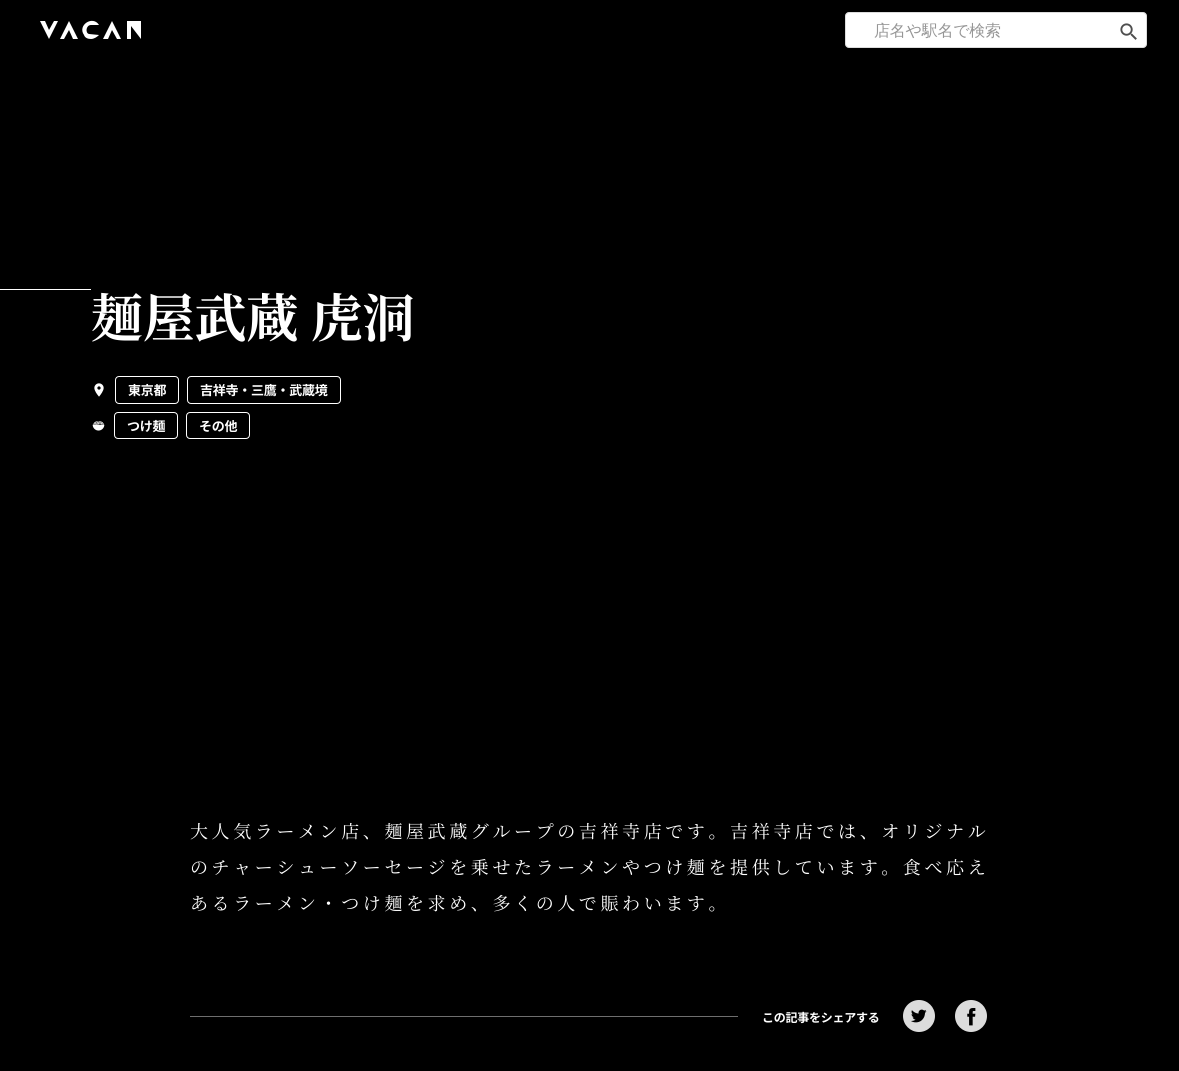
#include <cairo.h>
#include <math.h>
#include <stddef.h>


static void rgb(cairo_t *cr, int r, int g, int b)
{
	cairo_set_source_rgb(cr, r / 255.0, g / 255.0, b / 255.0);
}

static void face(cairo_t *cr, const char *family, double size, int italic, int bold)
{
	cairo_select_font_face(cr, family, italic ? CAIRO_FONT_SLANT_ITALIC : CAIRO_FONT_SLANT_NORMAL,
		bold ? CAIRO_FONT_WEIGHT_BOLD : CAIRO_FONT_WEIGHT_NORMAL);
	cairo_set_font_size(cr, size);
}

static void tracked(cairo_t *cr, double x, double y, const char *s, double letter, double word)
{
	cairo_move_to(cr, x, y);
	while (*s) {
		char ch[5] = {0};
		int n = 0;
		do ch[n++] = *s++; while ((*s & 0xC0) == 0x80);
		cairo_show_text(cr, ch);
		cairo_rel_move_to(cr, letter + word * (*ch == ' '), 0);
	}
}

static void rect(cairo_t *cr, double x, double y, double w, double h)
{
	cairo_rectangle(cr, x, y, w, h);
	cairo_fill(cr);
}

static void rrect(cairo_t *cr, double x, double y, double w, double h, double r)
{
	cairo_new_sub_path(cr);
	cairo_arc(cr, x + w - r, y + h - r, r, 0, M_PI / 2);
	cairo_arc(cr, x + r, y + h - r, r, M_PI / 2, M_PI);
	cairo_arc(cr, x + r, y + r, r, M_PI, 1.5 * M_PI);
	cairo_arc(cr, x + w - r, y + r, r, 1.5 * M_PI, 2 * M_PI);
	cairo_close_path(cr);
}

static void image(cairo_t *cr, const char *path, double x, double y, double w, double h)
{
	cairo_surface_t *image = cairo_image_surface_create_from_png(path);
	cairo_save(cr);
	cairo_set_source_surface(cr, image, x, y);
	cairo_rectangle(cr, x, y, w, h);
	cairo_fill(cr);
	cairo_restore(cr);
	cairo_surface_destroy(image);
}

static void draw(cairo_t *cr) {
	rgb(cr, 0, 0, 0);
	cairo_paint(cr);
	rgb(cr, 255, 255, 255);
	cairo_new_path(cr);
	cairo_move_to(cr, 54, 21);
	cairo_line_to(cr, 49, 30);
	cairo_line_to(cr, 45, 21);
	cairo_line_to(cr, 40, 21);
	cairo_line_to(cr, 49, 39);
	cairo_line_to(cr, 58, 21);
	cairo_close_path(cr);
	cairo_move_to(cr, 64, 39);
	cairo_line_to(cr, 69, 30);
	cairo_line_to(cr, 73, 39);
	cairo_line_to(cr, 78, 39);
	cairo_line_to(cr, 69, 21);
	cairo_line_to(cr, 60, 39);
	cairo_close_path(cr);
	cairo_move_to(cr, 112, 30);
	cairo_line_to(cr, 108, 39);
	cairo_line_to(cr, 103, 39);
	cairo_line_to(cr, 112, 21);
	cairo_line_to(cr, 121, 39);
	cairo_line_to(cr, 117, 39);
	cairo_close_path(cr);
	cairo_move_to(cr, 127, 21);
	cairo_line_to(cr, 141, 21);
	cairo_line_to(cr, 141, 39);
	cairo_line_to(cr, 131, 26);
	cairo_line_to(cr, 131, 39);
	cairo_line_to(cr, 127, 39);
	cairo_close_path(cr);
	cairo_move_to(cr, 91, 25);
	cairo_curve_to(cr, 86, 25, 85, 33, 89, 34);
	cairo_line_to(cr, 99, 35);
	cairo_curve_to(cr, 97, 37, 94, 39, 91, 39);
	cairo_curve_to(cr, 88, 39, 85, 38, 84, 35);
	cairo_curve_to(cr, 77, 25, 93, 15, 99, 25);
	cairo_close_path(cr);
	cairo_fill(cr);
	rrect(cr, 845.5, 12.5, 301, 35, 3.5);
	cairo_fill_preserve(cr);
	rgb(cr, 220, 220, 220);
	cairo_set_line_width(cr, 1);
	cairo_stroke(cr);
	face(cr, "WenQuanYi Zen Hei Medium", 16, 0, 0);
	rgb(cr, 150, 150, 150);
	tracked(cr, 874, 36, "店名や駅名で検索", -0.25, 0);
	image(cr, "image0.png", 1120, 23, 17, 17);
	rgb(cr, 255, 255, 255);
	rect(cr, 0, 289, 91, 1);
	face(cr, "Noto Serif JP", 52, 0, 1);
	tracked(cr, 91, 337, "麺屋武蔵 虎洞", -0.25, 0);
	image(cr, "image1.png", 94, 383, 10, 14);
	rrect(cr, 115.5, 376.5, 63, 27, 3.5);
	cairo_stroke(cr);
	face(cr, "Noto Sans JP", 13, 0, 1);
	tracked(cr, 128, 395, "東京都", -0.25, 0);
	rrect(cr, 187.5, 376.5, 153, 27, 3.5);
	cairo_stroke(cr);
	tracked(cr, 200, 395, "吉祥寺・三鷹・武蔵境", -0.25, 0);
	image(cr, "image2.png", 92, 421, 13, 10);
	rrect(cr, 114.5, 412.5, 63, 26, 3.5);
	cairo_stroke(cr);
	tracked(cr, 127, 431, "つけ麺", -0.25, 0);
	rrect(cr, 186.5, 412.5, 63, 26, 3.5);
	cairo_stroke(cr);
	tracked(cr, 199, 431, "その他", -0.25, 0);
	face(cr, "Noto Serif JP", 18, 0, 0);
	tracked(cr, 190, 838, "大人気ラーメン店、麺屋武蔵グループの吉祥寺店です。吉祥寺店では、オリジナル", 3.6, 0);
	tracked(cr, 190, 874, "のチャーシューソーセージを乗せたラーメンやつけ麺を提供しています。食べ応え", 3.6, 0);
	tracked(cr, 190, 910, "あるラーメン・つけ麺を求め、多くの人で賑わいます。", 3.6, 0);
	rgb(cr, 110, 110, 110);
	rect(cr, 190, 1016, 548, 1);
	face(cr, "Noto Sans JP", 12, 0, 1);
	rgb(cr, 255, 255, 255);
	tracked(cr, 762, 1022, "この記事をシェアする", -0.25, 0);
	image(cr, "image3.png", 903, 1000, 32, 32);
	image(cr, "image4.png", 955, 1000, 32, 32);
}

int main(void) {
	cairo_surface_t *surface = cairo_image_surface_create(CAIRO_FORMAT_RGB24, 1179, 1071);
	cairo_t *cr = cairo_create(surface);
	cairo_font_options_t *options = cairo_font_options_create();
	cairo_font_options_set_hint_metrics(options, CAIRO_HINT_METRICS_OFF);
	cairo_font_options_set_hint_style(options, CAIRO_HINT_STYLE_NONE);
	cairo_set_font_options(cr, options);
	cairo_set_miter_limit(cr, 4);
	draw(cr);
	cairo_surface_write_to_png(surface, "render.png");
	cairo_font_options_destroy(options);
	cairo_destroy(cr);
	cairo_surface_destroy(surface);
	return 0;
}
